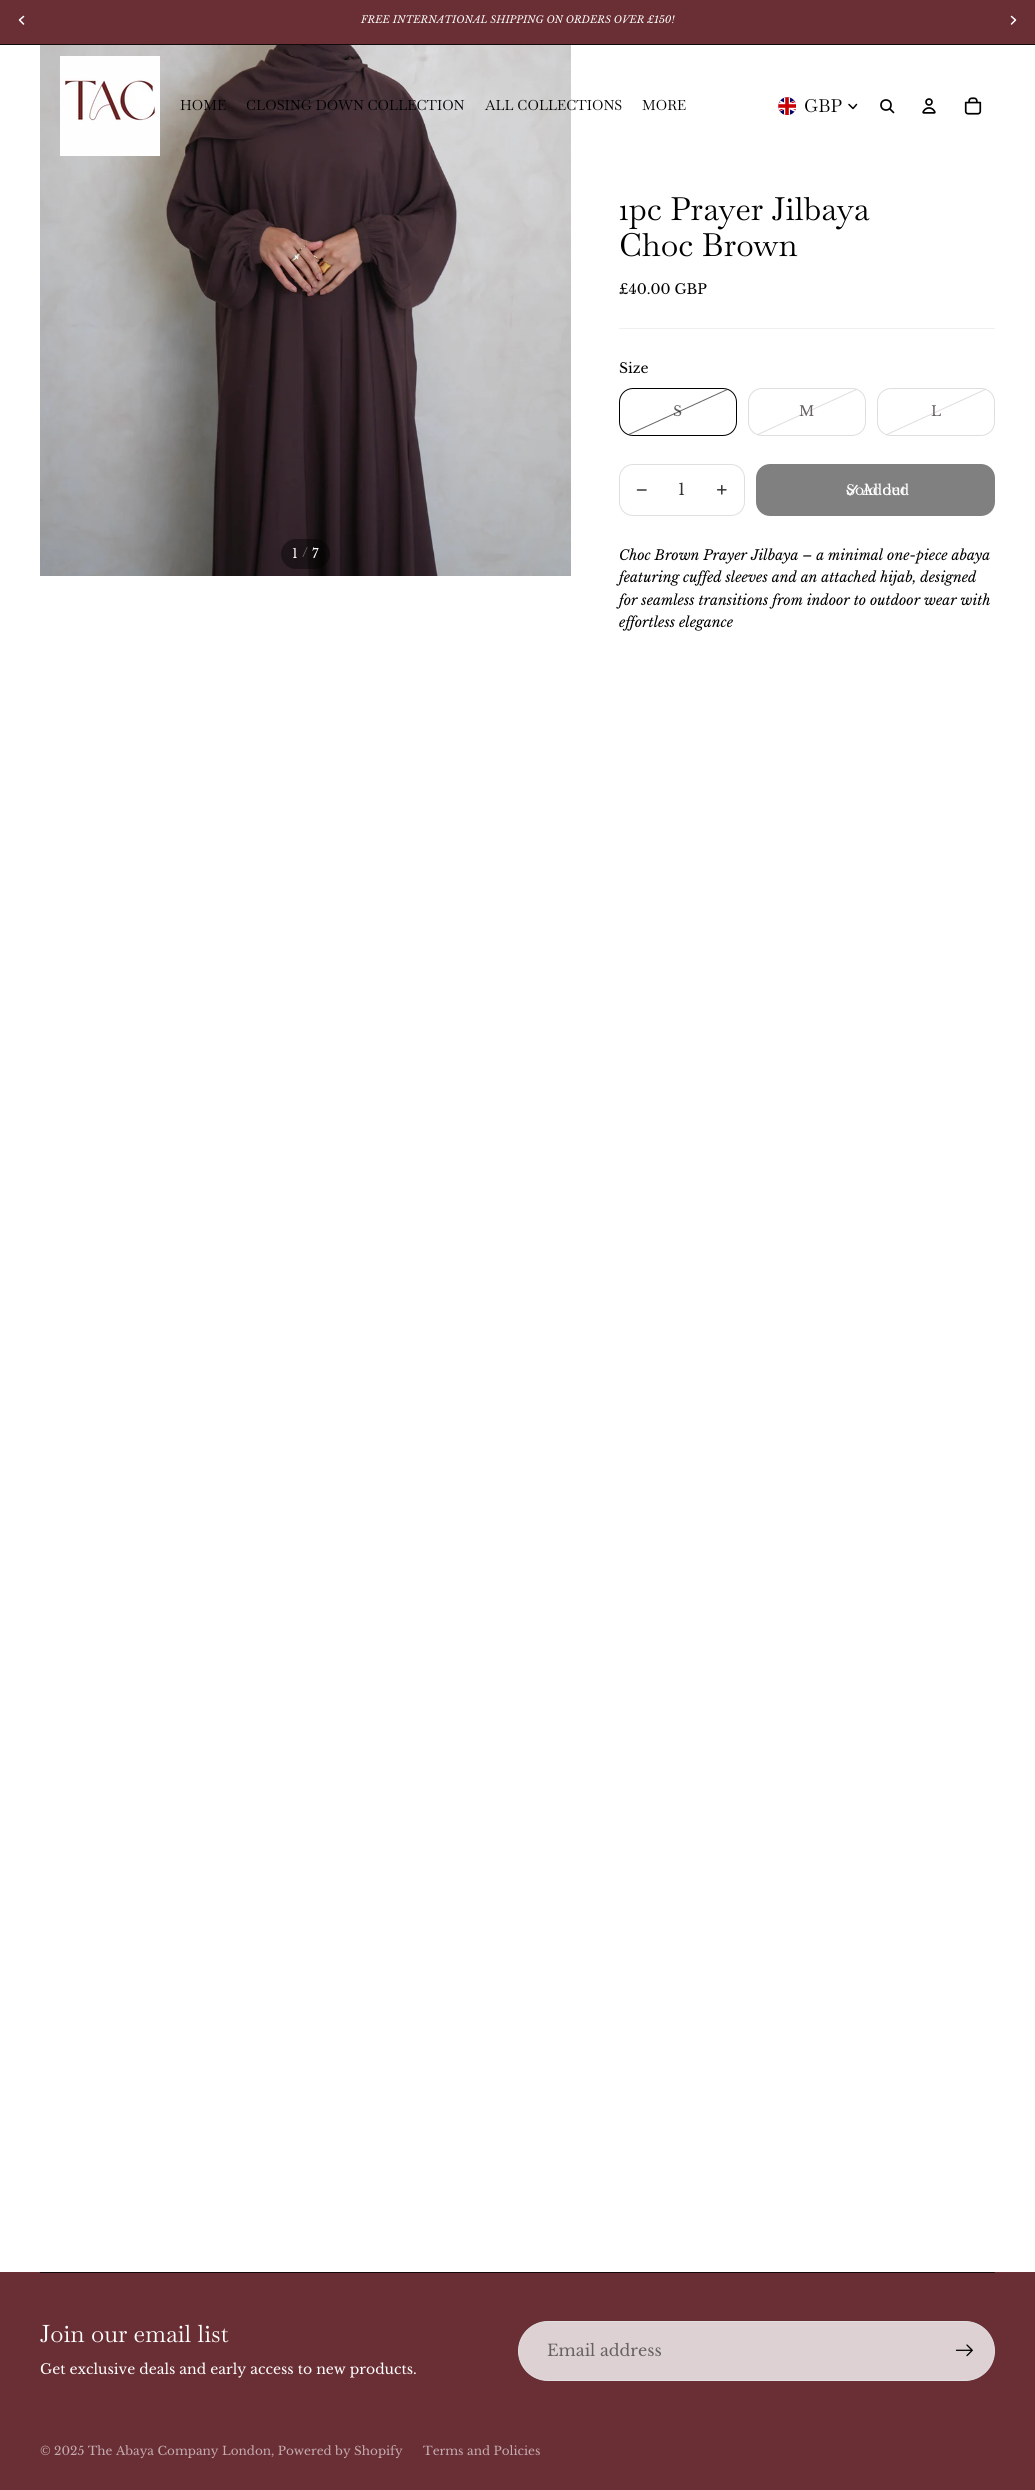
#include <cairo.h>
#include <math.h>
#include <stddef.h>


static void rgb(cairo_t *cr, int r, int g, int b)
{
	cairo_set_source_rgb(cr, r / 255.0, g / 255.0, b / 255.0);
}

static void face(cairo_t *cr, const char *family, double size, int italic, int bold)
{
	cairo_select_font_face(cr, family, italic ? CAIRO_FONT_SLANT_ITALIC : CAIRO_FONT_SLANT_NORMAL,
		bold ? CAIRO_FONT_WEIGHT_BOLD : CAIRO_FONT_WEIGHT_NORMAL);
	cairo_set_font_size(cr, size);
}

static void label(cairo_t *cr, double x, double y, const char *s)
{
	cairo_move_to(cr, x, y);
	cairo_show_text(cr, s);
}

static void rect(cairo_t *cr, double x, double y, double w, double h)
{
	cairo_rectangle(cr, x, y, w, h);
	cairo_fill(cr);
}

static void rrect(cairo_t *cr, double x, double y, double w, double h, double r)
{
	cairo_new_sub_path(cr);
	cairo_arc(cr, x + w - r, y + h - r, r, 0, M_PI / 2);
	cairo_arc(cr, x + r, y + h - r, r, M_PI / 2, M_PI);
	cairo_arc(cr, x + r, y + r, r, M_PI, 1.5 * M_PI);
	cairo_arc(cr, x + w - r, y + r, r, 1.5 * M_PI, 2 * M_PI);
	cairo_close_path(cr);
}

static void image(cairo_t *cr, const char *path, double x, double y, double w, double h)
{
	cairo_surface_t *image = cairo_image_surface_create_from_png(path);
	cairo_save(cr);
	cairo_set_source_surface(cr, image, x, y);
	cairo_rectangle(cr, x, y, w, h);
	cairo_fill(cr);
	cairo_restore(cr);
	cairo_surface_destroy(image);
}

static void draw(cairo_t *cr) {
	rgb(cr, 255, 255, 255);
	cairo_paint(cr);
	rgb(cr, 106, 46, 53);
	rect(cr, 0, 0, 1035, 44);
	rgb(cr, 20, 9, 10);
	rect(cr, 0, 44, 1035, 1);
	cairo_new_path(cr);
	cairo_move_to(cr, 23.5, 16.5);
	cairo_line_to(cr, 19.5, 20);
	cairo_line_to(cr, 23.5, 24);
	rgb(cr, 255, 255, 255);
	cairo_set_line_width(cr, 1.5);
	cairo_set_line_cap(cr, CAIRO_LINE_CAP_ROUND);
	cairo_set_line_join(cr, CAIRO_LINE_JOIN_ROUND);
	cairo_stroke(cr);
	cairo_new_path(cr);
	cairo_move_to(cr, 1011.5, 16.5);
	cairo_line_to(cr, 1015.5, 20);
	cairo_line_to(cr, 1011.5, 24);
	cairo_stroke(cr);
	face(cr, "Libre Baskerville", 10, 1, 0);
	label(cr, 361, 23, "FREE INTERNATIONAL SHIPPING ON ORDERS OVER £150!");
	image(cr, "image4.png", 40, 45, 531, 531);
	image(cr, "image0.png", 60, 56, 100, 100);
	face(cr, "Baskervville", 14, 0, 0);
	rgb(cr, 0, 0, 0);
	label(cr, 180, 110, "HOME");
	label(cr, 246, 110, "CLOSING DOWN COLLECTION");
	label(cr, 485, 110, "ALL COLLECTIONS");
	label(cr, 642, 110, "MORE");
	image(cr, "image1.png", 778, 97, 18, 18);
	face(cr, "Baskervville", 18, 0, 0);
	label(cr, 804, 112, "GBP");
	cairo_new_path(cr);
	cairo_move_to(cr, 856.5, 104.5);
	cairo_line_to(cr, 853, 108.5);
	cairo_line_to(cr, 849, 104.5);
	cairo_stroke(cr);
	cairo_arc(cr, 886, 105, 5, 0, 2 * M_PI);
	cairo_set_line_width(cr, 1.7);
	cairo_set_line_cap(cr, CAIRO_LINE_CAP_BUTT);
	cairo_set_line_join(cr, CAIRO_LINE_JOIN_MITER);
	cairo_stroke(cr);
	cairo_new_path(cr);
	cairo_move_to(cr, 890, 109);
	cairo_line_to(cr, 893.5, 112.5);
	cairo_set_line_cap(cr, CAIRO_LINE_CAP_ROUND);
	cairo_set_line_join(cr, CAIRO_LINE_JOIN_ROUND);
	cairo_stroke(cr);
	image(cr, "image2.png", 922, 98, 14, 16);
	image(cr, "image3.png", 964, 97, 18, 18);
	cairo_set_source_rgba(cr, 0, 0, 0, 0.4);
	rrect(cr, 281, 539, 49, 30, 15);
	cairo_fill(cr);
	face(cr, "Libre Baskerville", 13, 0, 0);
	rgb(cr, 255, 255, 255);
	label(cr, 292, 558, "1");
	rgb(cr, 119, 114, 117);
	label(cr, 302, 557, "/");
	rgb(cr, 255, 255, 255);
	label(cr, 312, 558, "7");
	face(cr, "Baskervville", 32, 0, 0);
	rgb(cr, 0, 0, 0);
	label(cr, 619, 220, "1pc Prayer Jilbaya");
	label(cr, 619, 256, "Choc Brown");
	face(cr, "Libre Baskerville", 14, 0, 0);
	label(cr, 619, 294, "£40.00 GBP");
	rgb(cr, 240, 240, 240);
	cairo_new_path(cr);
	cairo_move_to(cr, 995, 328);
	cairo_line_to(cr, 995, 329);
	cairo_line_to(cr, 994, 328);
	cairo_close_path(cr);
	cairo_fill(cr);
	cairo_set_source_rgba(cr, 0, 0, 0, 0.06);
	cairo_new_path(cr);
	cairo_move_to(cr, 995, 329);
	cairo_line_to(cr, 619, 329);
	cairo_line_to(cr, 619, 328);
	cairo_line_to(cr, 994, 328);
	cairo_close_path(cr);
	cairo_fill(cr);
	rgb(cr, 0, 0, 0);
	label(cr, 619, 373, "Size");
	rrect(cr, 619.5, 388.5, 117, 47, 13.5);
	cairo_set_line_width(cr, 1);
	cairo_set_line_cap(cr, CAIRO_LINE_CAP_BUTT);
	cairo_set_line_join(cr, CAIRO_LINE_JOIN_MITER);
	cairo_stroke(cr);
	rgb(cr, 102, 98, 99);
	label(cr, 673, 416, "S");
	cairo_save(cr);
	rrect(cr, 620, 389, 116, 46, 13);
	cairo_clip(cr);
	cairo_new_path(cr);
	cairo_move_to(cr, 736, 385.5);
	cairo_line_to(cr, 620, 438.5);
	cairo_set_source_rgba(cr, 0, 0, 0, 0.6);
	cairo_stroke(cr);
	cairo_restore(cr);
	rrect(cr, 748.5, 388.5, 117, 47, 13.5);
	rgb(cr, 222, 222, 222);
	cairo_stroke(cr);
	cairo_save(cr);
	rrect(cr, 749, 389, 116, 46, 13);
	cairo_clip(cr);
	cairo_new_path(cr);
	cairo_move_to(cr, 865, 385.5);
	cairo_line_to(cr, 749, 438.5);
	cairo_set_source_rgba(cr, 0, 0, 0, 0.13);
	cairo_stroke(cr);
	cairo_restore(cr);
	rgb(cr, 102, 98, 99);
	label(cr, 799, 416, "M");
	rrect(cr, 877.5, 388.5, 117, 47, 13.5);
	rgb(cr, 222, 222, 222);
	cairo_stroke(cr);
	cairo_save(cr);
	rrect(cr, 878, 389, 116, 46, 13);
	cairo_clip(cr);
	cairo_new_path(cr);
	cairo_move_to(cr, 994, 385.5);
	cairo_line_to(cr, 878, 438.5);
	cairo_set_source_rgba(cr, 0, 0, 0, 0.13);
	cairo_stroke(cr);
	cairo_restore(cr);
	rgb(cr, 102, 98, 99);
	label(cr, 931, 416, "L");
	rrect(cr, 619.5, 464.5, 125, 51, 13.5);
	rgb(cr, 223, 223, 223);
	cairo_stroke(cr);
	cairo_new_path(cr);
	cairo_move_to(cr, 637.5, 490);
	cairo_line_to(cr, 646, 490);
	rgb(cr, 51, 51, 51);
	cairo_set_line_width(cr, 1.5);
	cairo_set_line_cap(cr, CAIRO_LINE_CAP_ROUND);
	cairo_stroke(cr);
	face(cr, "Libre Baskerville", 16, 0, 0);
	label(cr, 678, 495, "1");
	image(cr, "image5.png", 716, 484, 11, 11);
	rgb(cr, 128, 128, 128);
	rrect(cr, 756, 464, 239, 52, 14);
	cairo_fill(cr);
	face(cr, "Libre Baskerville", 14, 0, 0);
	rgb(cr, 255, 255, 255);
	label(cr, 846, 495, "Sold out");
	cairo_new_path(cr);
	cairo_move_to(cr, 847, 490.5);
	cairo_line_to(cr, 849, 494);
	cairo_curve_to(cr, 850.5, 495.5, 850, 495, 851.5, 493);
	cairo_line_to(cr, 857, 485.5);
	cairo_set_line_join(cr, CAIRO_LINE_JOIN_ROUND);
	cairo_stroke(cr);
	label(cr, 862, 495, "Added");
	face(cr, "Libre Baskerville", 14, 1, 0);
	rgb(cr, 0, 0, 0);
	label(cr, 619, 560, "Choc Brown Prayer Jilbaya – a minimal one-piece abaya");
	label(cr, 619, 582, "featuring cuffed sleeves and an attached hijab, designed");
	label(cr, 619, 605, "for seamless transitions from indoor to outdoor wear with");
	label(cr, 619, 627, "effortless elegance");
	rgb(cr, 106, 46, 53);
	rect(cr, 0, 2272, 1035, 218);
	rgb(cr, 20, 9, 10);
	cairo_new_path(cr);
	cairo_move_to(cr, 995, 2272);
	cairo_line_to(cr, 995, 2273);
	cairo_line_to(cr, 994, 2272);
	cairo_close_path(cr);
	cairo_fill(cr);
	cairo_set_source_rgba(cr, 0, 0, 0, 0.81);
	cairo_new_path(cr);
	cairo_move_to(cr, 995, 2273);
	cairo_line_to(cr, 40, 2273);
	cairo_line_to(cr, 40, 2272);
	cairo_line_to(cr, 994, 2272);
	cairo_close_path(cr);
	cairo_fill(cr);
	face(cr, "Baskervville", 24, 0, 0);
	rgb(cr, 255, 255, 255);
	label(cr, 40, 2342, "Join our email list");
	face(cr, "Libre Baskerville", 14, 0, 0);
	label(cr, 40, 2374, "Get exclusive deals and early access to new products.");
	rgb(cr, 222, 209, 211);
	rrect(cr, 518.5, 2321.5, 476, 59, 29.5);
	cairo_fill_preserve(cr);
	rgb(cr, 223, 223, 223);
	cairo_set_line_width(cr, 1);
	cairo_set_line_cap(cr, CAIRO_LINE_CAP_BUTT);
	cairo_set_line_join(cr, CAIRO_LINE_JOIN_MITER);
	cairo_stroke(cr);
	face(cr, "Libre Baskerville", 16, 0, 0);
	rgb(cr, 102, 98, 99);
	label(cr, 547, 2356, "Email address");
	image(cr, "image6.png", 955, 2344, 18, 13);
	face(cr, "Libre Baskerville", 12, 0, 0);
	rgb(cr, 195, 171, 174);
	label(cr, 40, 2455, "© 2025 The Abaya Company London, Powered by Shopify");
	label(cr, 423, 2455, "Terms and Policies");
}

int main(void) {
	cairo_surface_t *surface = cairo_image_surface_create(CAIRO_FORMAT_RGB24, 1035, 2490);
	cairo_t *cr = cairo_create(surface);
	cairo_font_options_t *options = cairo_font_options_create();
	cairo_font_options_set_hint_metrics(options, CAIRO_HINT_METRICS_OFF);
	cairo_font_options_set_hint_style(options, CAIRO_HINT_STYLE_NONE);
	cairo_set_font_options(cr, options);
	cairo_set_miter_limit(cr, 4);
	draw(cr);
	cairo_surface_write_to_png(surface, "render.png");
	cairo_font_options_destroy(options);
	cairo_destroy(cr);
	cairo_surface_destroy(surface);
	return 0;
}
